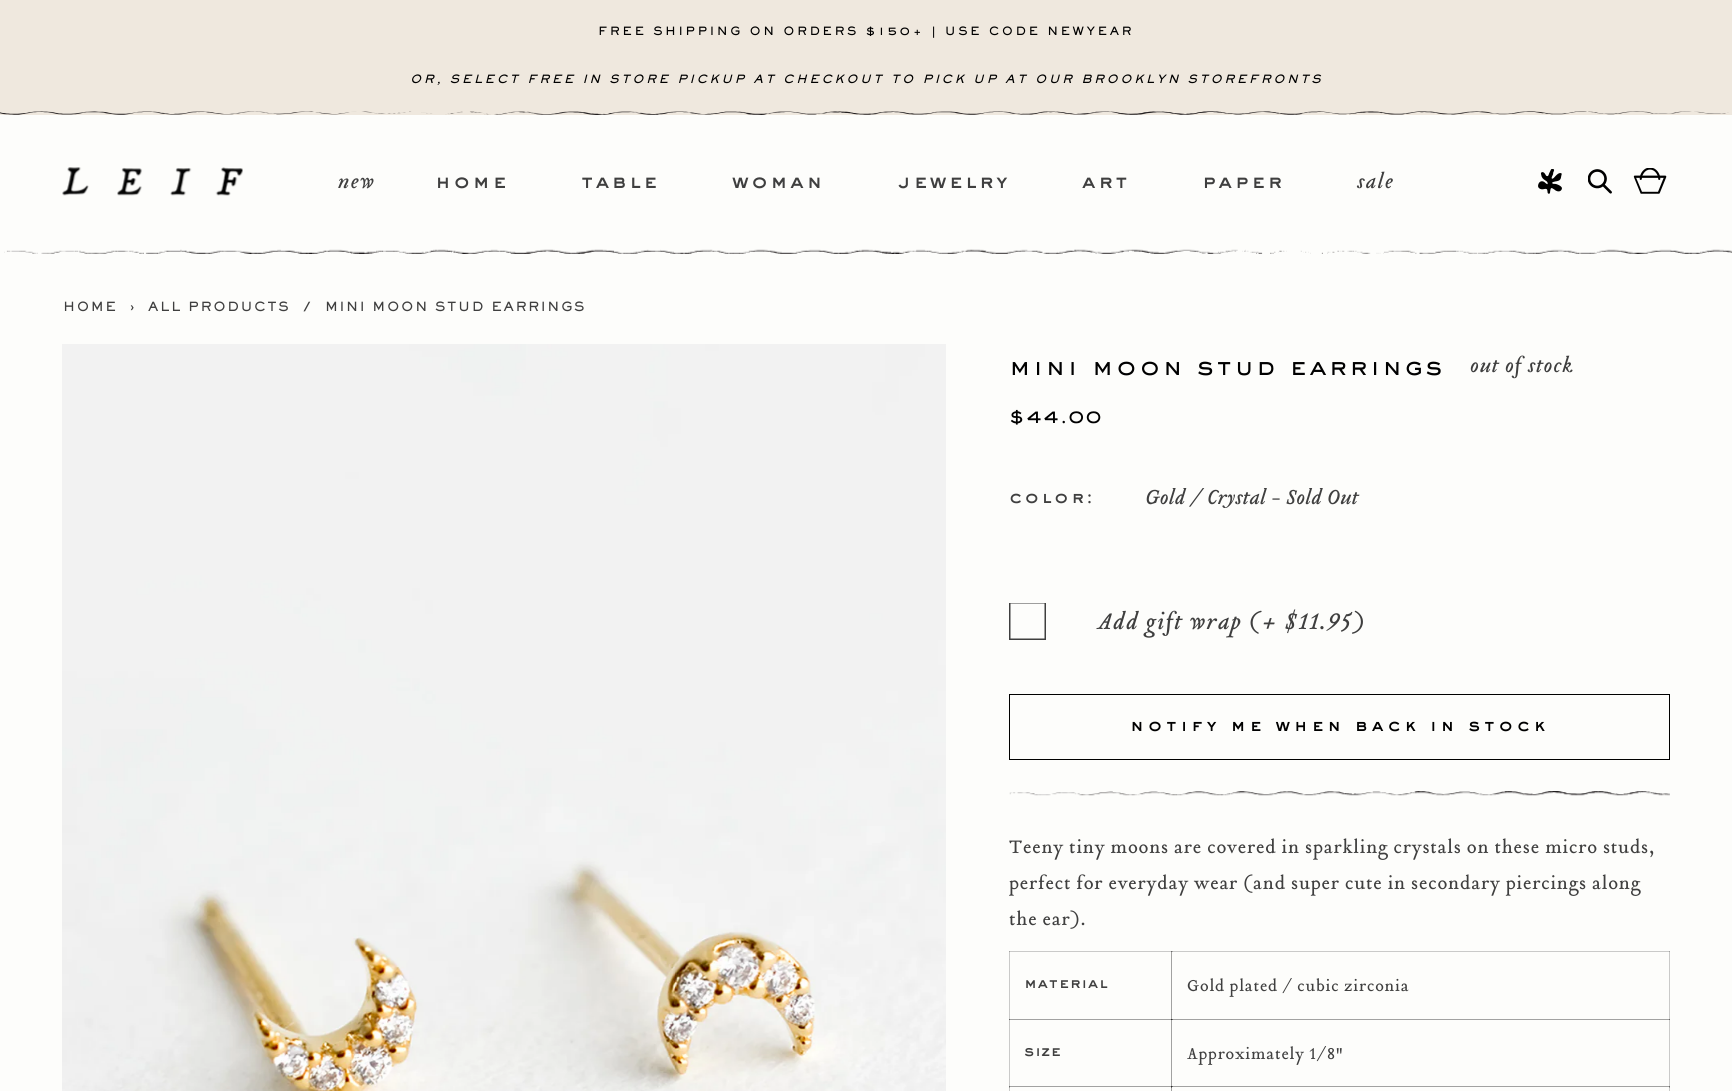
#include <cairo.h>
#include <math.h>
#include <stddef.h>


static void rgb(cairo_t *cr, int r, int g, int b)
{
	cairo_set_source_rgb(cr, r / 255.0, g / 255.0, b / 255.0);
}

static void face(cairo_t *cr, const char *family, double size, int italic, int bold)
{
	cairo_select_font_face(cr, family, italic ? CAIRO_FONT_SLANT_ITALIC : CAIRO_FONT_SLANT_NORMAL,
		bold ? CAIRO_FONT_WEIGHT_BOLD : CAIRO_FONT_WEIGHT_NORMAL);
	cairo_set_font_size(cr, size);
}

static void label(cairo_t *cr, double x, double y, const char *s)
{
	cairo_move_to(cr, x, y);
	cairo_show_text(cr, s);
}

static void tracked(cairo_t *cr, double x, double y, const char *s, double letter, double word)
{
	cairo_move_to(cr, x, y);
	while (*s) {
		char ch[5] = {0};
		int n = 0;
		do ch[n++] = *s++; while ((*s & 0xC0) == 0x80);
		cairo_show_text(cr, ch);
		cairo_rel_move_to(cr, letter + word * (*ch == ' '), 0);
	}
}

static void rect(cairo_t *cr, double x, double y, double w, double h)
{
	cairo_rectangle(cr, x, y, w, h);
	cairo_fill(cr);
}

static void image(cairo_t *cr, const char *path, double x, double y, double w, double h)
{
	cairo_surface_t *image = cairo_image_surface_create_from_png(path);
	cairo_save(cr);
	cairo_set_source_surface(cr, image, x, y);
	cairo_rectangle(cr, x, y, w, h);
	cairo_fill(cr);
	cairo_restore(cr);
	cairo_surface_destroy(image);
}

static void draw(cairo_t *cr) {
	rgb(cr, 253, 253, 251);
	cairo_paint(cr);
	rgb(cr, 202, 202, 201);
	rect(cr, 1009, 951, 1, 140);
	rect(cr, 1009, 951, 164, 1);
	rgb(cr, 162, 162, 161);
	rect(cr, 1009, 951, 1, 1);
	rect(cr, 1171, 951, 1, 69);
	rgb(cr, 202, 202, 201);
	rect(cr, 1669, 951, 1, 140);
	rgb(cr, 162, 162, 161);
	rect(cr, 1009, 1019, 164, 1);
	rgb(cr, 104, 104, 103);
	rect(cr, 1009, 1019, 1, 1);
	rgb(cr, 162, 162, 161);
	rect(cr, 1171, 1019, 1, 69);
	rect(cr, 1009, 1086, 1, 2);
	rect(cr, 1009, 1086, 164, 1);
	rgb(cr, 104, 104, 103);
	rect(cr, 1009, 1086, 1, 1);
	rgb(cr, 162, 162, 161);
	rect(cr, 1171, 1086, 1, 5);
	rgb(cr, 104, 104, 103);
	rect(cr, 1171, 1086, 1, 2);
	rgb(cr, 162, 162, 161);
	rect(cr, 1669, 1086, 1, 2);
	rgb(cr, 239, 232, 222);
	rect(cr, 0, 0, 1732, 115);
	face(cr, "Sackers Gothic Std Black", 11.25, 0, 0);
	rgb(cr, 0, 0, 0);
	tracked(cr, 598, 35, "FREE SHIPPING ON ORDERS $150+ | USE CODE NEWYEAR", 2.5, 0);
	face(cr, "Sackers Gothic Std Black", 11.25, 1, 0);
	tracked(cr, 410, 83, "OR, SELECT FREE IN STORE PICKUP AT CHECKOUT TO PICK UP AT OUR BROOKLYN STOREFRONTS", 2.5, 0);
	image(cr, "image0.png", 0, 111, 1729, 4);
	image(cr, "image1.png", 62, 167, 181, 29);
	face(cr, "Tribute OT", 22.5, 1, 0);
	rgb(cr, 63, 63, 63);
	tracked(cr, 338, 188, "new", 1.25, 0);
	face(cr, "Sackers Gothic Std Black", 20, 0, 0);
	tracked(cr, 435, 188, "home", 2.5, 0);
	tracked(cr, 581, 188, "table", 2.5, 0);
	tracked(cr, 732, 188, "woman", 2.5, 0);
	tracked(cr, 898, 188, "jewelry", 2.5, 0);
	tracked(cr, 1082, 188, "art", 2.5, 0);
	tracked(cr, 1202, 188, "paper", 2.5, 0);
	face(cr, "Tribute OT", 22.5, 1, 0);
	tracked(cr, 1357, 188, "sale", 1.25, 0);
	image(cr, "image2.png", 1538, 169, 24, 25);
	image(cr, "image3.png", 1588, 169, 24, 25);
	image(cr, "image4.png", 1633, 168, 34, 26);
	image(cr, "image5.png", 4, 249, 1728, 5);
	face(cr, "Sackers Gothic Std Black", 12.5, 0, 0);
	tracked(cr, 63, 311, "HOME", 1.6, 0);
	tracked(cr, 130, 311, "›", 1.6, 0);
	tracked(cr, 148, 311, "ALL PRODUCTS", 1.6, 0);
	tracked(cr, 303, 311, "/", 1.6, 0);
	tracked(cr, 325, 311, "MINI MOON STUD EARRINGS", 1.6, 0);
	image(cr, "image6.png", 62, 344, 884, 747);
	face(cr, "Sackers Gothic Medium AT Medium", 25, 0, 0);
	rgb(cr, 0, 0, 0);
	tracked(cr, 1009, 375, "mini moon stud earrings", 2.5, 0);
	face(cr, "Tribute OT", 22.5, 1, 0);
	rgb(cr, 63, 63, 63);
	tracked(cr, 1470, 372, "out of stock", 0.75, 0);
	face(cr, "Sackers Gothic Std Black", 17.5, 0, 0);
	rgb(cr, 0, 0, 0);
	tracked(cr, 1009, 423, "$44.00", 1.6, 0);
	rgb(cr, 63, 63, 63);
	tracked(cr, 1009, 503, "color:", 2.5, 0);
	cairo_save(cr);
	cairo_rectangle(cr, 1009, 488, 661, 86);
	cairo_clip(cr);
	face(cr, "Tribute OT", 22.5, 1, 0);
	label(cr, 1145, 504, "Gold / Crystal - Sold Out");
	cairo_restore(cr);
	cairo_save(cr);
	cairo_rectangle(cr, 1009, 603, 37, 37);
	cairo_clip(cr);
	cairo_rectangle(cr, 1009.25, 602.25, 36.5, 37.5);
	cairo_set_line_width(cr, 2.5);
	cairo_stroke(cr);
	cairo_restore(cr);
	face(cr, "Tribute OT", 25, 1, 0);
	tracked(cr, 1097, 629, "Add gift wrap (+ $11.95)", 1.25, 0);
	cairo_rectangle(cr, 1009.5, 694.5, 660, 65);
	rgb(cr, 0, 0, 0);
	cairo_set_line_width(cr, 1);
	cairo_stroke(cr);
	face(cr, "Sackers Gothic Std Black", 17.5, 0, 0);
	tracked(cr, 1130, 731, "notify me when back in stock", 3.75, 0);
	image(cr, "image7.png", 1009, 791, 661, 5);
	face(cr, "Tribute OT", 20, 0, 0);
	rgb(cr, 63, 63, 63);
	tracked(cr, 1009, 853, "Teeny tiny moons are covered in sparkling crystals on these micro studs,", 0.75, 0);
	tracked(cr, 1009, 889, "perfect for everyday wear (and super cute in secondary piercings along", 0.75, 0);
	tracked(cr, 1009, 925, "the ear).", 0.75, 0);
	face(cr, "Sackers Gothic Std Black", 15, 0, 0);
	tracked(cr, 1024, 988, "material", 0.75, 0);
	rgb(cr, 202, 202, 201);
	rect(cr, 1171, 951, 499, 1);
	rgb(cr, 162, 162, 161);
	rect(cr, 1171, 951, 2, 1);
	rgb(cr, 104, 104, 103);
	rect(cr, 1171, 951, 1, 1);
	rgb(cr, 162, 162, 161);
	rect(cr, 1669, 951, 1, 1);
	face(cr, "Tribute OT", 17.5, 0, 0);
	rgb(cr, 63, 63, 63);
	tracked(cr, 1187, 991, "Gold plated / cubic zirconia", 0.75, 0);
	face(cr, "Sackers Gothic Std Black", 15, 0, 0);
	tracked(cr, 1024, 1056, "size", 0.75, 0);
	rgb(cr, 162, 162, 161);
	rect(cr, 1171, 1019, 499, 1);
	rgb(cr, 104, 104, 103);
	rect(cr, 1171, 1019, 2, 1);
	rgb(cr, 42, 42, 42);
	rect(cr, 1171, 1019, 1, 1);
	rgb(cr, 104, 104, 103);
	rect(cr, 1669, 1019, 1, 1);
	face(cr, "Tribute OT", 17.5, 0, 0);
	rgb(cr, 63, 63, 63);
	tracked(cr, 1187, 1059, "Approximately 1/8\"", 0.75, 0);
	rgb(cr, 162, 162, 161);
	rect(cr, 1171, 1086, 499, 1);
	rgb(cr, 104, 104, 103);
	rect(cr, 1171, 1086, 2, 1);
	rgb(cr, 42, 42, 42);
	rect(cr, 1171, 1086, 1, 1);
	rgb(cr, 104, 104, 103);
	rect(cr, 1669, 1086, 1, 1);
}

int main(void) {
	cairo_surface_t *surface = cairo_image_surface_create(CAIRO_FORMAT_RGB24, 1732, 1091);
	cairo_t *cr = cairo_create(surface);
	cairo_font_options_t *options = cairo_font_options_create();
	cairo_font_options_set_hint_metrics(options, CAIRO_HINT_METRICS_OFF);
	cairo_font_options_set_hint_style(options, CAIRO_HINT_STYLE_NONE);
	cairo_set_font_options(cr, options);
	cairo_set_miter_limit(cr, 4);
	draw(cr);
	cairo_surface_write_to_png(surface, "render.png");
	cairo_font_options_destroy(options);
	cairo_destroy(cr);
	cairo_surface_destroy(surface);
	return 0;
}
